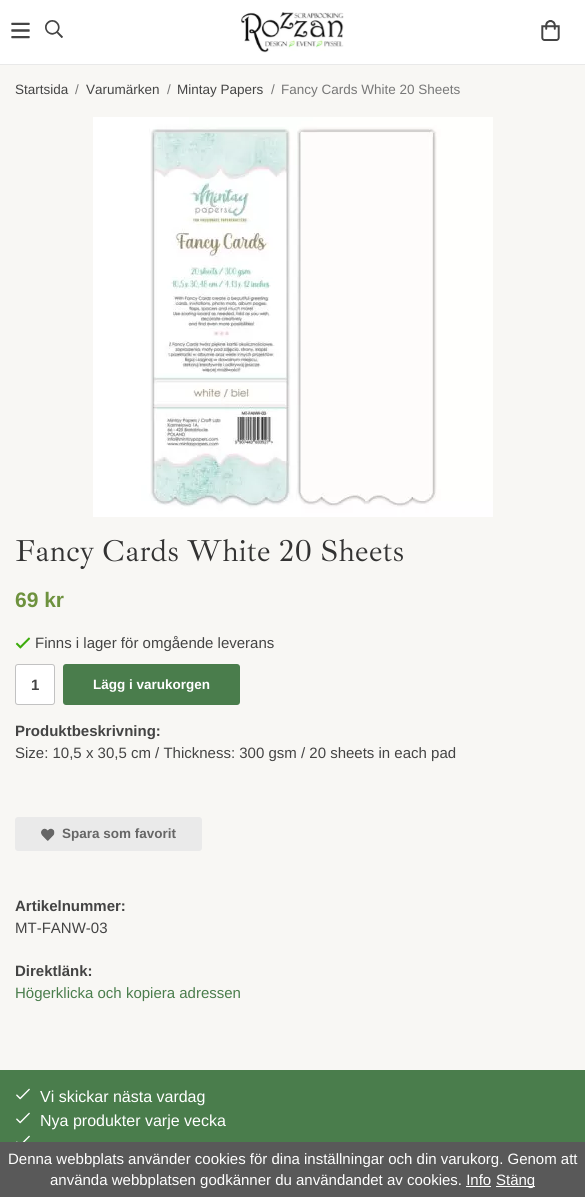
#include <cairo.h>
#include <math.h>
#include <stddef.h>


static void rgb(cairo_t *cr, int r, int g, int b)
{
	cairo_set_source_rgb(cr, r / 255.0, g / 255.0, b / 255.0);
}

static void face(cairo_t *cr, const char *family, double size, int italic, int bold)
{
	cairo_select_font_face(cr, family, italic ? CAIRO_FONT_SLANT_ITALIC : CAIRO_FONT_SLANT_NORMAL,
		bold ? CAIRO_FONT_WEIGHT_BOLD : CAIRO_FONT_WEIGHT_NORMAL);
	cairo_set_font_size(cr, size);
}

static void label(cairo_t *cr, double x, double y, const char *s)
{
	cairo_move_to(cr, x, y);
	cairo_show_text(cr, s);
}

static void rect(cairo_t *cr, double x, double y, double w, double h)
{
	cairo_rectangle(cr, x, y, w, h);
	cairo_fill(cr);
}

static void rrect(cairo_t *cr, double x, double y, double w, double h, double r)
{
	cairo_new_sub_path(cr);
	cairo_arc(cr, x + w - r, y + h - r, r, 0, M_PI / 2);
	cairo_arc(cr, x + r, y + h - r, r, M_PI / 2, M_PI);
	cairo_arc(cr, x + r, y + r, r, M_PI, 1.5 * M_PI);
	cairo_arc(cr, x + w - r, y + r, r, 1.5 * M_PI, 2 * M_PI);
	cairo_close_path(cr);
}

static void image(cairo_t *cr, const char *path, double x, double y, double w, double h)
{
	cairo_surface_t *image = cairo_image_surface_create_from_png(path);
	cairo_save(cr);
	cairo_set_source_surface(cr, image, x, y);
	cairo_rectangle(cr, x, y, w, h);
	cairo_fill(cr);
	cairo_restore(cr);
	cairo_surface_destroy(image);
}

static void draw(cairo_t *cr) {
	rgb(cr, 248, 247, 244);
	cairo_paint(cr);
	rgb(cr, 255, 255, 255);
	rect(cr, 0, 0, 585, 64);
	rgb(cr, 233, 233, 233);
	rect(cr, 0, 64, 585, 1);
	image(cr, "image0.png", 11, 22, 19, 17);
	image(cr, "image1.png", 45, 20, 18, 18);
	image(cr, "image2.png", 241, 12, 103, 41);
	image(cr, "image3.png", 541, 20, 19, 21);
	face(cr, "Liberation Sans", 13.5, 0, 0);
	rgb(cr, 68, 68, 68);
	label(cr, 15, 94, "Startsida");
	rgb(cr, 119, 119, 119);
	label(cr, 75, 94, "/");
	rgb(cr, 68, 68, 68);
	label(cr, 86, 94, "Varumärken");
	rgb(cr, 119, 119, 119);
	label(cr, 167, 94, "/");
	rgb(cr, 68, 68, 68);
	label(cr, 177, 94, "Mintay Papers");
	rgb(cr, 119, 119, 119);
	label(cr, 271, 94, "/");
	label(cr, 281, 94, "Fancy Cards White 20 Sheets");
	image(cr, "image4.png", 93, 117, 400, 400);
	face(cr, "Ibarra Real Nova", 31, 0, 0);
	rgb(cr, 51, 51, 51);
	label(cr, 15, 561, "Fancy Cards White 20 Sheets");
	face(cr, "Liberation Sans", 21, 0, 1);
	rgb(cr, 110, 146, 62);
	label(cr, 15, 607, "69 kr");
	image(cr, "image5.png", 15, 637, 16, 12);
	face(cr, "Liberation Sans", 15, 0, 0);
	rgb(cr, 68, 68, 68);
	label(cr, 35, 648, "Finns i lager för omgående leverans");
	rgb(cr, 255, 255, 255);
	rrect(cr, 15.5, 664.5, 39, 40, 2.5);
	cairo_fill_preserve(cr);
	rgb(cr, 194, 194, 194);
	cairo_set_line_width(cr, 1);
	cairo_stroke(cr);
	face(cr, "Liberation Sans", 15, 0, 1);
	rgb(cr, 68, 68, 68);
	label(cr, 31, 690, "1");
	rgb(cr, 74, 125, 76);
	rrect(cr, 63, 664, 177, 41, 3);
	cairo_fill(cr);
	face(cr, "Liberation Sans", 13.5, 0, 1);
	rgb(cr, 255, 255, 255);
	label(cr, 93, 689, "Lägg i varukorgen");
	face(cr, "Liberation Sans", 15, 0, 1);
	rgb(cr, 68, 68, 68);
	label(cr, 15, 736, "Produktbeskrivning:");
	face(cr, "Liberation Sans", 15, 0, 0);
	label(cr, 15, 758, "Size: 10,5 x 30,5 cm / Thickness: 300 gsm / 20 sheets in each pad");
	rgb(cr, 234, 234, 234);
	rrect(cr, 15, 817, 187, 34, 3);
	cairo_fill(cr);
	image(cr, "image6.png", 41, 828, 14, 13);
	face(cr, "Liberation Sans", 13.5, 0, 1);
	rgb(cr, 102, 102, 102);
	label(cr, 62, 838, "Spara som favorit");
	face(cr, "Liberation Sans", 15, 0, 1);
	rgb(cr, 68, 68, 68);
	label(cr, 15, 911, "Artikelnummer:");
	face(cr, "Liberation Sans", 15, 0, 0);
	label(cr, 15, 933, "MT-FANW-03");
	face(cr, "Liberation Sans", 15, 0, 1);
	label(cr, 15, 976, "Direktlänk:");
	face(cr, "Liberation Sans", 15, 0, 0);
	rgb(cr, 74, 125, 76);
	label(cr, 15, 998, "Högerklicka och kopiera adressen");
	rect(cr, 0, 1070, 585, 72);
	image(cr, "image7.png", 16, 1088, 14, 12);
	face(cr, "Liberation Sans", 16, 0, 0);
	rgb(cr, 255, 255, 255);
	label(cr, 40, 1102, "Vi skickar nästa vardag");
	image(cr, "image7.png", 16, 1112, 14, 12);
	label(cr, 40, 1126, "Nya produkter varje vecka");
	image(cr, "image8.png", 16, 1135, 14, 7);
	rgb(cr, 89, 89, 89);
	rect(cr, 0, 1142, 585, 55);
	face(cr, "Liberation Sans", 15, 0, 0);
	rgb(cr, 255, 255, 255);
	label(cr, 8, 1164, "Denna webbplats använder cookies för dina inställningar och din varukorg. Genom att");
	label(cr, 50, 1185, "använda webbplatsen godkänner du användandet av cookies. Info");
	rect(cr, 496, 1186, 39, 1);
	label(cr, 496, 1185, "Stäng");
	rect(cr, 466, 1186, 25, 1);
}

int main(void) {
	cairo_surface_t *surface = cairo_image_surface_create(CAIRO_FORMAT_RGB24, 585, 1197);
	cairo_t *cr = cairo_create(surface);
	cairo_font_options_t *options = cairo_font_options_create();
	cairo_font_options_set_hint_metrics(options, CAIRO_HINT_METRICS_OFF);
	cairo_font_options_set_hint_style(options, CAIRO_HINT_STYLE_NONE);
	cairo_set_font_options(cr, options);
	cairo_set_miter_limit(cr, 4);
	draw(cr);
	cairo_surface_write_to_png(surface, "render.png");
	cairo_font_options_destroy(options);
	cairo_destroy(cr);
	cairo_surface_destroy(surface);
	return 0;
}
